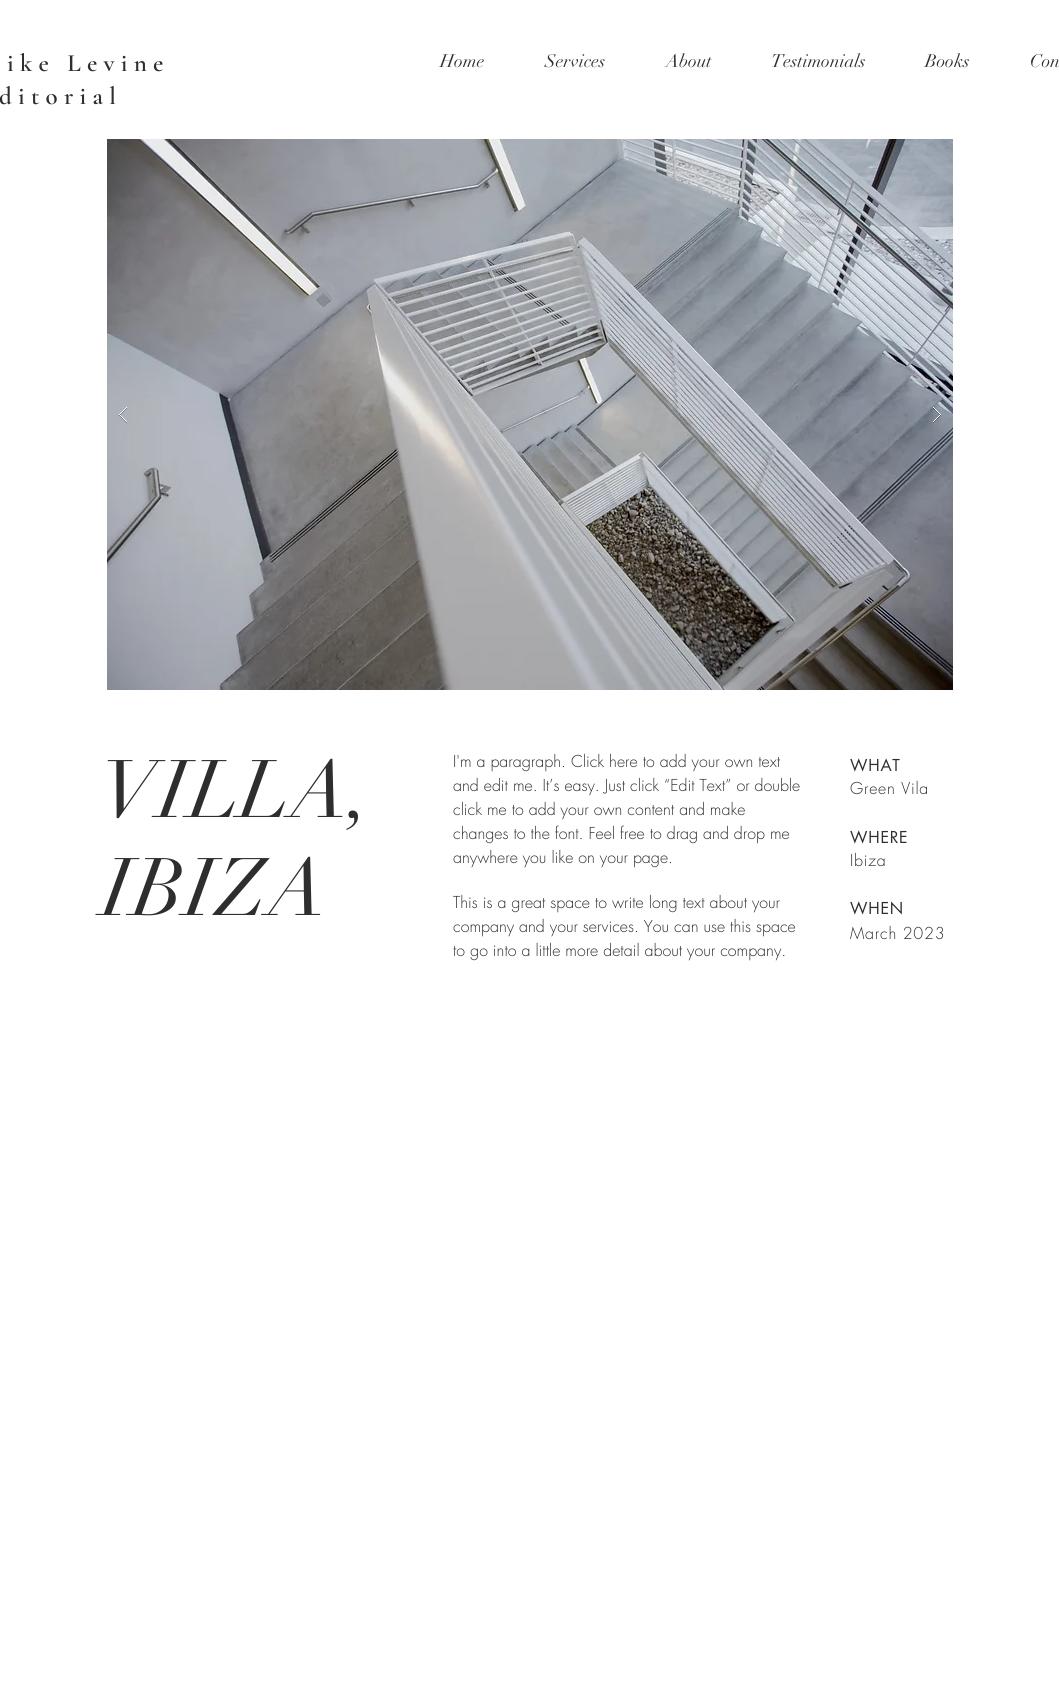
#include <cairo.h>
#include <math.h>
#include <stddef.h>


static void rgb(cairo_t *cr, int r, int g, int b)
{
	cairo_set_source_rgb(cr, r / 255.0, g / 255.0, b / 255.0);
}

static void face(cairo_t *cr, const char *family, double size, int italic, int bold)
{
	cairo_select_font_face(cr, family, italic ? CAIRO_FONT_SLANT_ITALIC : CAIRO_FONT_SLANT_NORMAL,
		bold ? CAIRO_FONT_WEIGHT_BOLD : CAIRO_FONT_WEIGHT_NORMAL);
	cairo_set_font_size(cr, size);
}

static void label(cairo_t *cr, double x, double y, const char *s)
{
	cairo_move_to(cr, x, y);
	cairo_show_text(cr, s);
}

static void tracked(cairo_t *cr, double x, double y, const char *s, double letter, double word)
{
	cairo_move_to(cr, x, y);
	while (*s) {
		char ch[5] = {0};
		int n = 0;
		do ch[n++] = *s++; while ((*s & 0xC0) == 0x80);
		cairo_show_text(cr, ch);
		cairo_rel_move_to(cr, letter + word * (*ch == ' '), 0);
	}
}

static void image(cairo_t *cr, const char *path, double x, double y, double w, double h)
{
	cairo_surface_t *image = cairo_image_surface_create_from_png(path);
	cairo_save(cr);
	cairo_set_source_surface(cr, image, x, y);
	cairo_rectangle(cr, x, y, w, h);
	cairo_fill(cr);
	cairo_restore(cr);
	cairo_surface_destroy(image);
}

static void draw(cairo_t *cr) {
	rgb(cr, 255, 255, 255);
	cairo_paint(cr);
	face(cr, "Cormorant Garamond SemiBold", 25, 0, 0);
	rgb(cr, 47, 46, 46);
	tracked(cr, 7, 71, "ike Levine", 6.25, 0);
	tracked(cr, -1, 104, "ditorial", 6.25, 0);
	face(cr, "didot", 18, 0, 0);
	label(cr, 440, 67, "Home");
	label(cr, 545, 67, "Services");
	label(cr, 666, 67, "About");
	label(cr, 771, 67, "Testimonials");
	label(cr, 925, 67, "Books");
	label(cr, 1030, 67, "Con");
	image(cr, "image0.png", 107, 139, 846, 551);
	image(cr, "image1.png", 119, 407, 8, 16);
	image(cr, "image2.png", 933, 407, 8, 16);
	face(cr, "didot", 80, 0, 0);
	label(cr, 102, 817, "VILLA,");
	label(cr, 102, 915, "IBIZA");
	face(cr, "futura Light", 16, 0, 0);
	label(cr, 453, 767, "I'm a paragraph. Click here to add your own text");
	label(cr, 453, 791, "and edit me. It’s easy. Just click “Edit Text” or double");
	label(cr, 453, 815, "click me to add your own content and make");
	label(cr, 453, 839, "changes to the font. Feel free to drag and drop me");
	label(cr, 453, 863, "anywhere you like on your page.");
	label(cr, 453, 908, "This is a great space to write long text about your");
	label(cr, 453, 932, "company and your services. You can use this space");
	label(cr, 453, 956, "to go into a little more detail about your company.");
	face(cr, "futura", 16, 0, 0);
	tracked(cr, 850, 771, "WHAT", 0.75, 0);
	face(cr, "futura Light", 16, 0, 0);
	tracked(cr, 850, 794, "Green Vila", 0.75, 0);
	face(cr, "futura", 16, 0, 0);
	tracked(cr, 850, 843, "WHERE", 0.75, 0);
	face(cr, "futura Light", 16, 0, 0);
	tracked(cr, 850, 866, "Ibiza", 0.75, 0);
	face(cr, "futura", 16, 0, 0);
	tracked(cr, 850, 914, "WHEN", 0.75, 0);
	face(cr, "futura Light", 16, 0, 0);
	tracked(cr, 850, 939, "March 2023", 0.75, 0);
}

int main(void) {
	cairo_surface_t *surface = cairo_image_surface_create(CAIRO_FORMAT_RGB24, 1059, 1703);
	cairo_t *cr = cairo_create(surface);
	cairo_font_options_t *options = cairo_font_options_create();
	cairo_font_options_set_hint_metrics(options, CAIRO_HINT_METRICS_OFF);
	cairo_font_options_set_hint_style(options, CAIRO_HINT_STYLE_NONE);
	cairo_set_font_options(cr, options);
	cairo_set_miter_limit(cr, 4);
	draw(cr);
	cairo_surface_write_to_png(surface, "render.png");
	cairo_font_options_destroy(options);
	cairo_destroy(cr);
	cairo_surface_destroy(surface);
	return 0;
}
